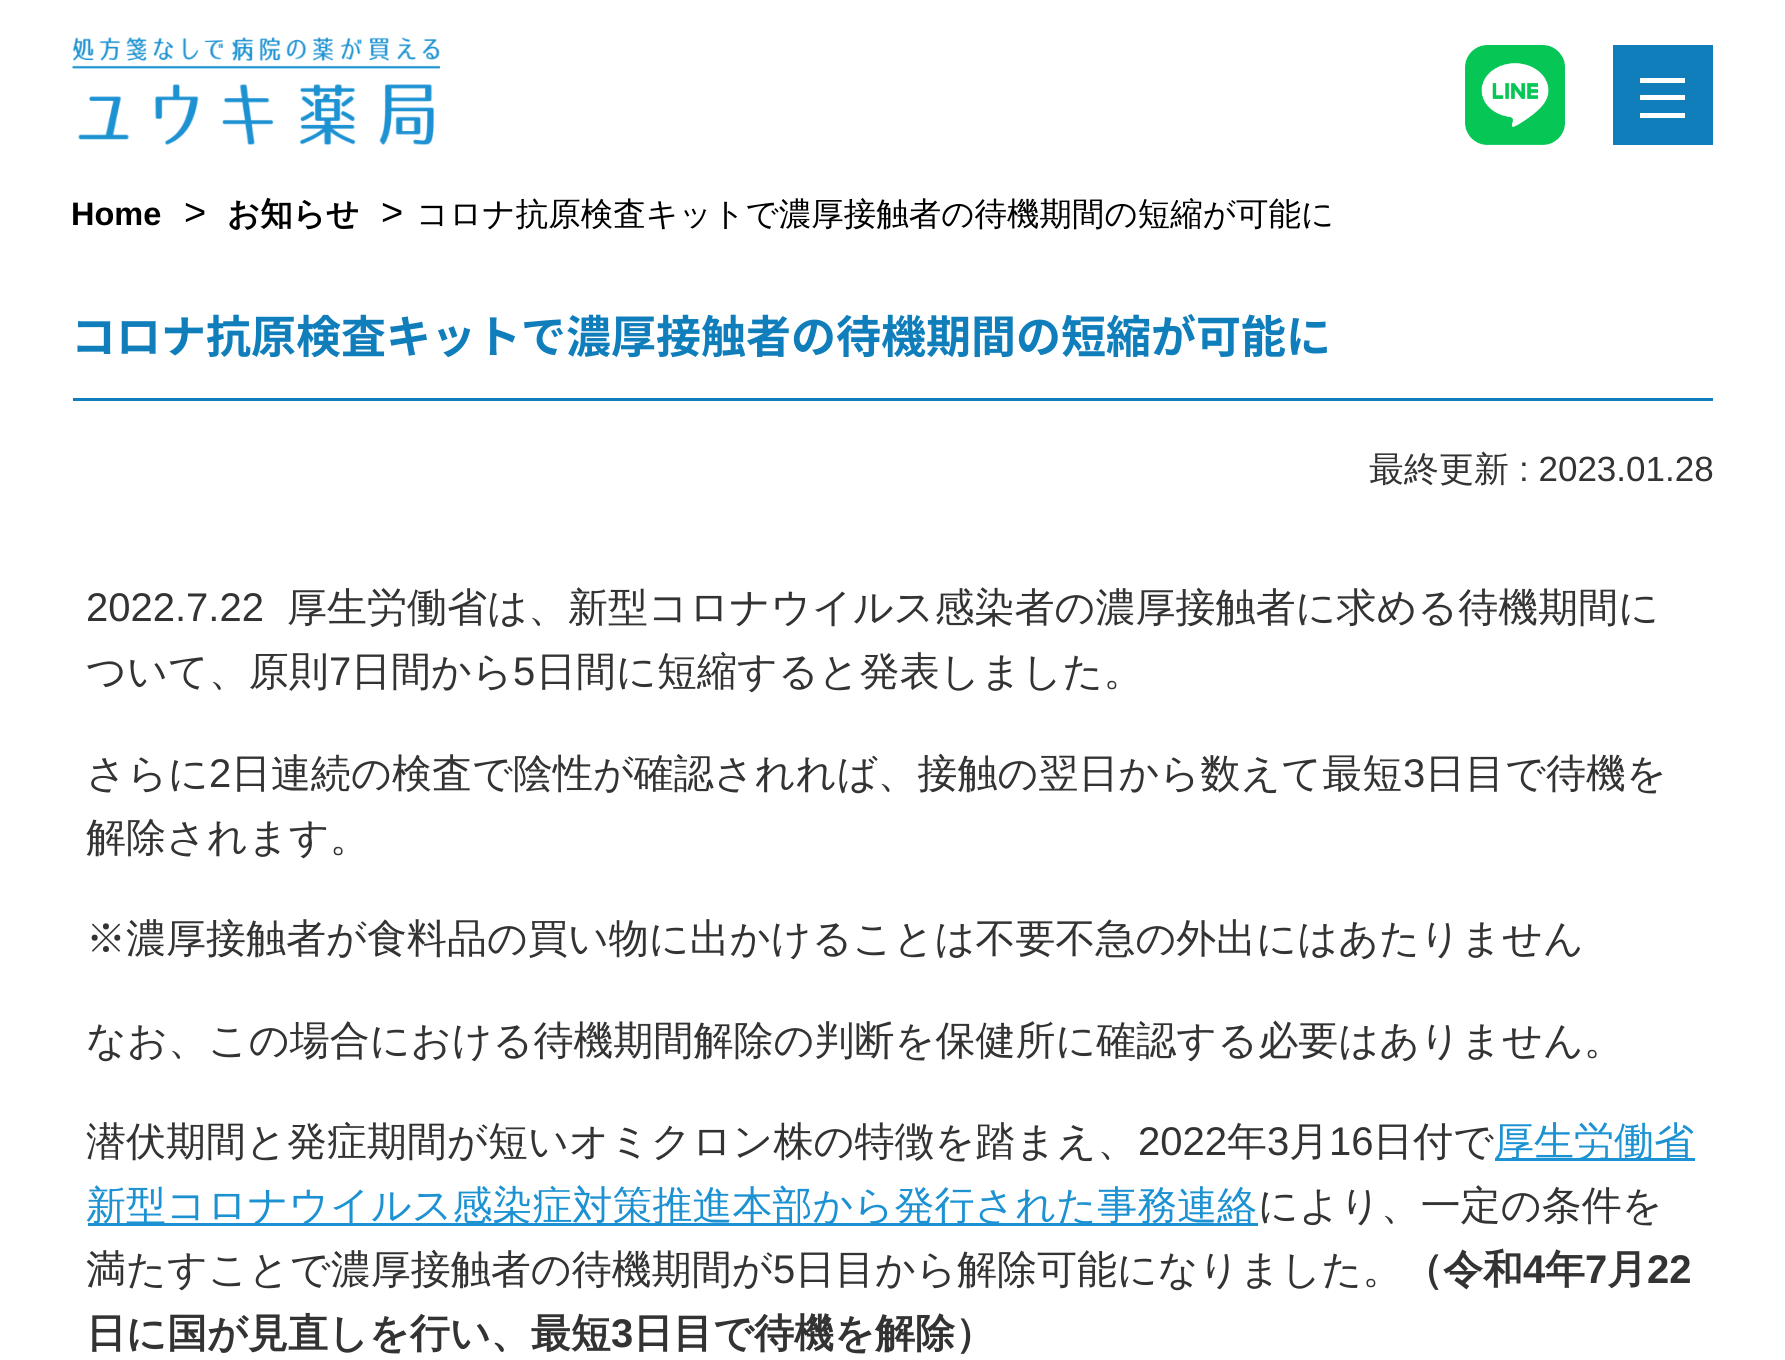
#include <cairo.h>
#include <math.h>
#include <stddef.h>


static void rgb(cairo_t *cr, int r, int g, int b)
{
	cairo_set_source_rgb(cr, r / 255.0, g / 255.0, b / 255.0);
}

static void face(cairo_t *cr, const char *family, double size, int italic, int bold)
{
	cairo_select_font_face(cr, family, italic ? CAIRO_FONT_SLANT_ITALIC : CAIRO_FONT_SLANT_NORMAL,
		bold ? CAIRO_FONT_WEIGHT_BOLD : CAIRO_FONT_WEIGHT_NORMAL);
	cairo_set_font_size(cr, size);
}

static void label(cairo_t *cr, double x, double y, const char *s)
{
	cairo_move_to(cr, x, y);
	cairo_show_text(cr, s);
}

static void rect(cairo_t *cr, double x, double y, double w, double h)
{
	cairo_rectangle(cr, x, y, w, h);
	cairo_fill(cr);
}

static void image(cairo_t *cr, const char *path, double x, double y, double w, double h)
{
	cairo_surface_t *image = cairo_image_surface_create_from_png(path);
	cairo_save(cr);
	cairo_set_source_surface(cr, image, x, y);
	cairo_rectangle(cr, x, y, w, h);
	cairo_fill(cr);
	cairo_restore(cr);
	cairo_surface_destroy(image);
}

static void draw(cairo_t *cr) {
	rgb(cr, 255, 255, 255);
	cairo_paint(cr);
	image(cr, "image0.png", 72, 37, 368, 108);
	image(cr, "image1.png", 1465, 45, 100, 100);
	rgb(cr, 16, 126, 187);
	rect(cr, 1613, 45, 100, 100);
	rgb(cr, 255, 255, 255);
	rect(cr, 1640, 78, 45, 5);
	rect(cr, 1640, 95, 45, 5);
	rect(cr, 1640, 113, 45, 5);
	face(cr, "Liberation Sans", 32.5, 0, 1);
	rgb(cr, 0, 0, 0);
	label(cr, 71, 225, "Home");
	face(cr, "Liberation Sans", 38, 0, 0);
	label(cr, 184, 225, ">");
	face(cr, "WenQuanYi Zen Hei", 32.5, 0, 1);
	label(cr, 227, 225, "お知らせ");
	face(cr, "Liberation Sans", 38, 0, 0);
	label(cr, 381, 225, ">");
	face(cr, "WenQuanYi Zen Hei Medium", 32.5, 0, 0);
	label(cr, 416, 225, "コロナ抗原検査キットで濃厚接触者の待機期間の短縮が可能に");
	rgb(cr, 16, 126, 187);
	rect(cr, 73, 398, 1640, 3);
	face(cr, "Noto Sans JP", 45, 0, 1);
	label(cr, 71, 353, "コロナ抗原検査キットで濃厚接触者の待機期間の短縮が可能に");
	face(cr, "WenQuanYi Zen Hei Medium", 35, 0, 0);
	rgb(cr, 51, 51, 51);
	label(cr, 1369, 481, "最終更新");
	face(cr, "Liberation Sans", 35, 0, 0);
	label(cr, 1519, 481, ": 2023.01.28");
	face(cr, "Liberation Sans", 40, 0, 0);
	label(cr, 86, 621, "2022.7.22");
	face(cr, "WenQuanYi Zen Hei Medium", 40, 0, 0);
	label(cr, 287, 621, "厚生労働省は、新型コロナウイルス感染者の濃厚接触者に求める待機期間に");
	label(cr, 86, 685, "ついて、原則");
	face(cr, "Liberation Sans", 40, 0, 0);
	label(cr, 329, 685, "7");
	face(cr, "WenQuanYi Zen Hei Medium", 40, 0, 0);
	label(cr, 351, 685, "日間から");
	face(cr, "Liberation Sans", 40, 0, 0);
	label(cr, 513, 685, "5");
	face(cr, "WenQuanYi Zen Hei Medium", 40, 0, 0);
	label(cr, 536, 685, "日間に短縮すると発表しました。");
	label(cr, 86, 787, "さらに");
	face(cr, "Liberation Sans", 40, 0, 0);
	label(cr, 209, 787, "2");
	face(cr, "WenQuanYi Zen Hei Medium", 40, 0, 0);
	label(cr, 231, 787, "日連続の検査で陰性が確認されれば、接触の翌日から数えて最短");
	face(cr, "Liberation Sans", 40, 0, 0);
	label(cr, 1403, 787, "3");
	face(cr, "WenQuanYi Zen Hei Medium", 40, 0, 0);
	label(cr, 1425, 787, "日目で待機を");
	label(cr, 86, 851, "解除されます。");
	label(cr, 86, 952, "※濃厚接触者が食料品の買い物に出かけることは不要不急の外出にはあたりません");
	label(cr, 86, 1054, "なお、この場合における待機期間解除の判断を保健所に確認する必要はありません。");
	label(cr, 86, 1155, "潜伏期間と発症期間が短いオミクロン株の特徴を踏まえ、");
	face(cr, "Liberation Sans", 40, 0, 0);
	label(cr, 1138, 1155, "2022");
	face(cr, "WenQuanYi Zen Hei Medium", 40, 0, 0);
	label(cr, 1227, 1155, "年");
	face(cr, "Liberation Sans", 40, 0, 0);
	label(cr, 1267, 1155, "3");
	face(cr, "WenQuanYi Zen Hei Medium", 40, 0, 0);
	label(cr, 1289, 1155, "月");
	face(cr, "Liberation Sans", 40, 0, 0);
	label(cr, 1329, 1155, "16");
	face(cr, "WenQuanYi Zen Hei Medium", 40, 0, 0);
	label(cr, 1373, 1155, "日付で");
	rgb(cr, 29, 146, 210);
	rect(cr, 1495, 1158, 200, 3);
	label(cr, 1494, 1155, "厚生労働省");
	rect(cr, 88, 1223, 1170, 3);
	label(cr, 86, 1219, "新型コロナウイルス感染症対策推進本部から発行された事務連絡");
	rgb(cr, 51, 51, 51);
	label(cr, 1258, 1219, "により、一定の条件を");
	label(cr, 86, 1283, "満たすことで濃厚接触者の待機期間が");
	face(cr, "Liberation Sans", 40, 0, 0);
	label(cr, 773, 1283, "5");
	face(cr, "WenQuanYi Zen Hei Medium", 40, 0, 0);
	label(cr, 795, 1283, "日目から解除可能になりました。");
	face(cr, "WenQuanYi Zen Hei", 40, 0, 1);
	label(cr, 1403, 1283, "（令和");
	face(cr, "Liberation Sans", 40, 0, 1);
	label(cr, 1523, 1283, "4");
	face(cr, "WenQuanYi Zen Hei", 40, 0, 1);
	label(cr, 1545, 1283, "年");
	face(cr, "Liberation Sans", 40, 0, 1);
	label(cr, 1585, 1283, "7");
	face(cr, "WenQuanYi Zen Hei", 40, 0, 1);
	label(cr, 1607, 1283, "月");
	face(cr, "Liberation Sans", 40, 0, 1);
	label(cr, 1647, 1283, "22");
	face(cr, "WenQuanYi Zen Hei", 40, 0, 1);
	label(cr, 86, 1347, "日に国が見直しを行い、最短");
	face(cr, "Liberation Sans", 40, 0, 1);
	label(cr, 611, 1347, "3");
	face(cr, "WenQuanYi Zen Hei", 40, 0, 1);
	label(cr, 633, 1347, "日目で待機を解除）");
}

int main(void) {
	cairo_surface_t *surface = cairo_image_surface_create(CAIRO_FORMAT_RGB24, 1785, 1360);
	cairo_t *cr = cairo_create(surface);
	cairo_font_options_t *options = cairo_font_options_create();
	cairo_font_options_set_hint_metrics(options, CAIRO_HINT_METRICS_OFF);
	cairo_font_options_set_hint_style(options, CAIRO_HINT_STYLE_NONE);
	cairo_set_font_options(cr, options);
	cairo_set_miter_limit(cr, 4);
	draw(cr);
	cairo_surface_write_to_png(surface, "render.png");
	cairo_font_options_destroy(options);
	cairo_destroy(cr);
	cairo_surface_destroy(surface);
	return 0;
}
